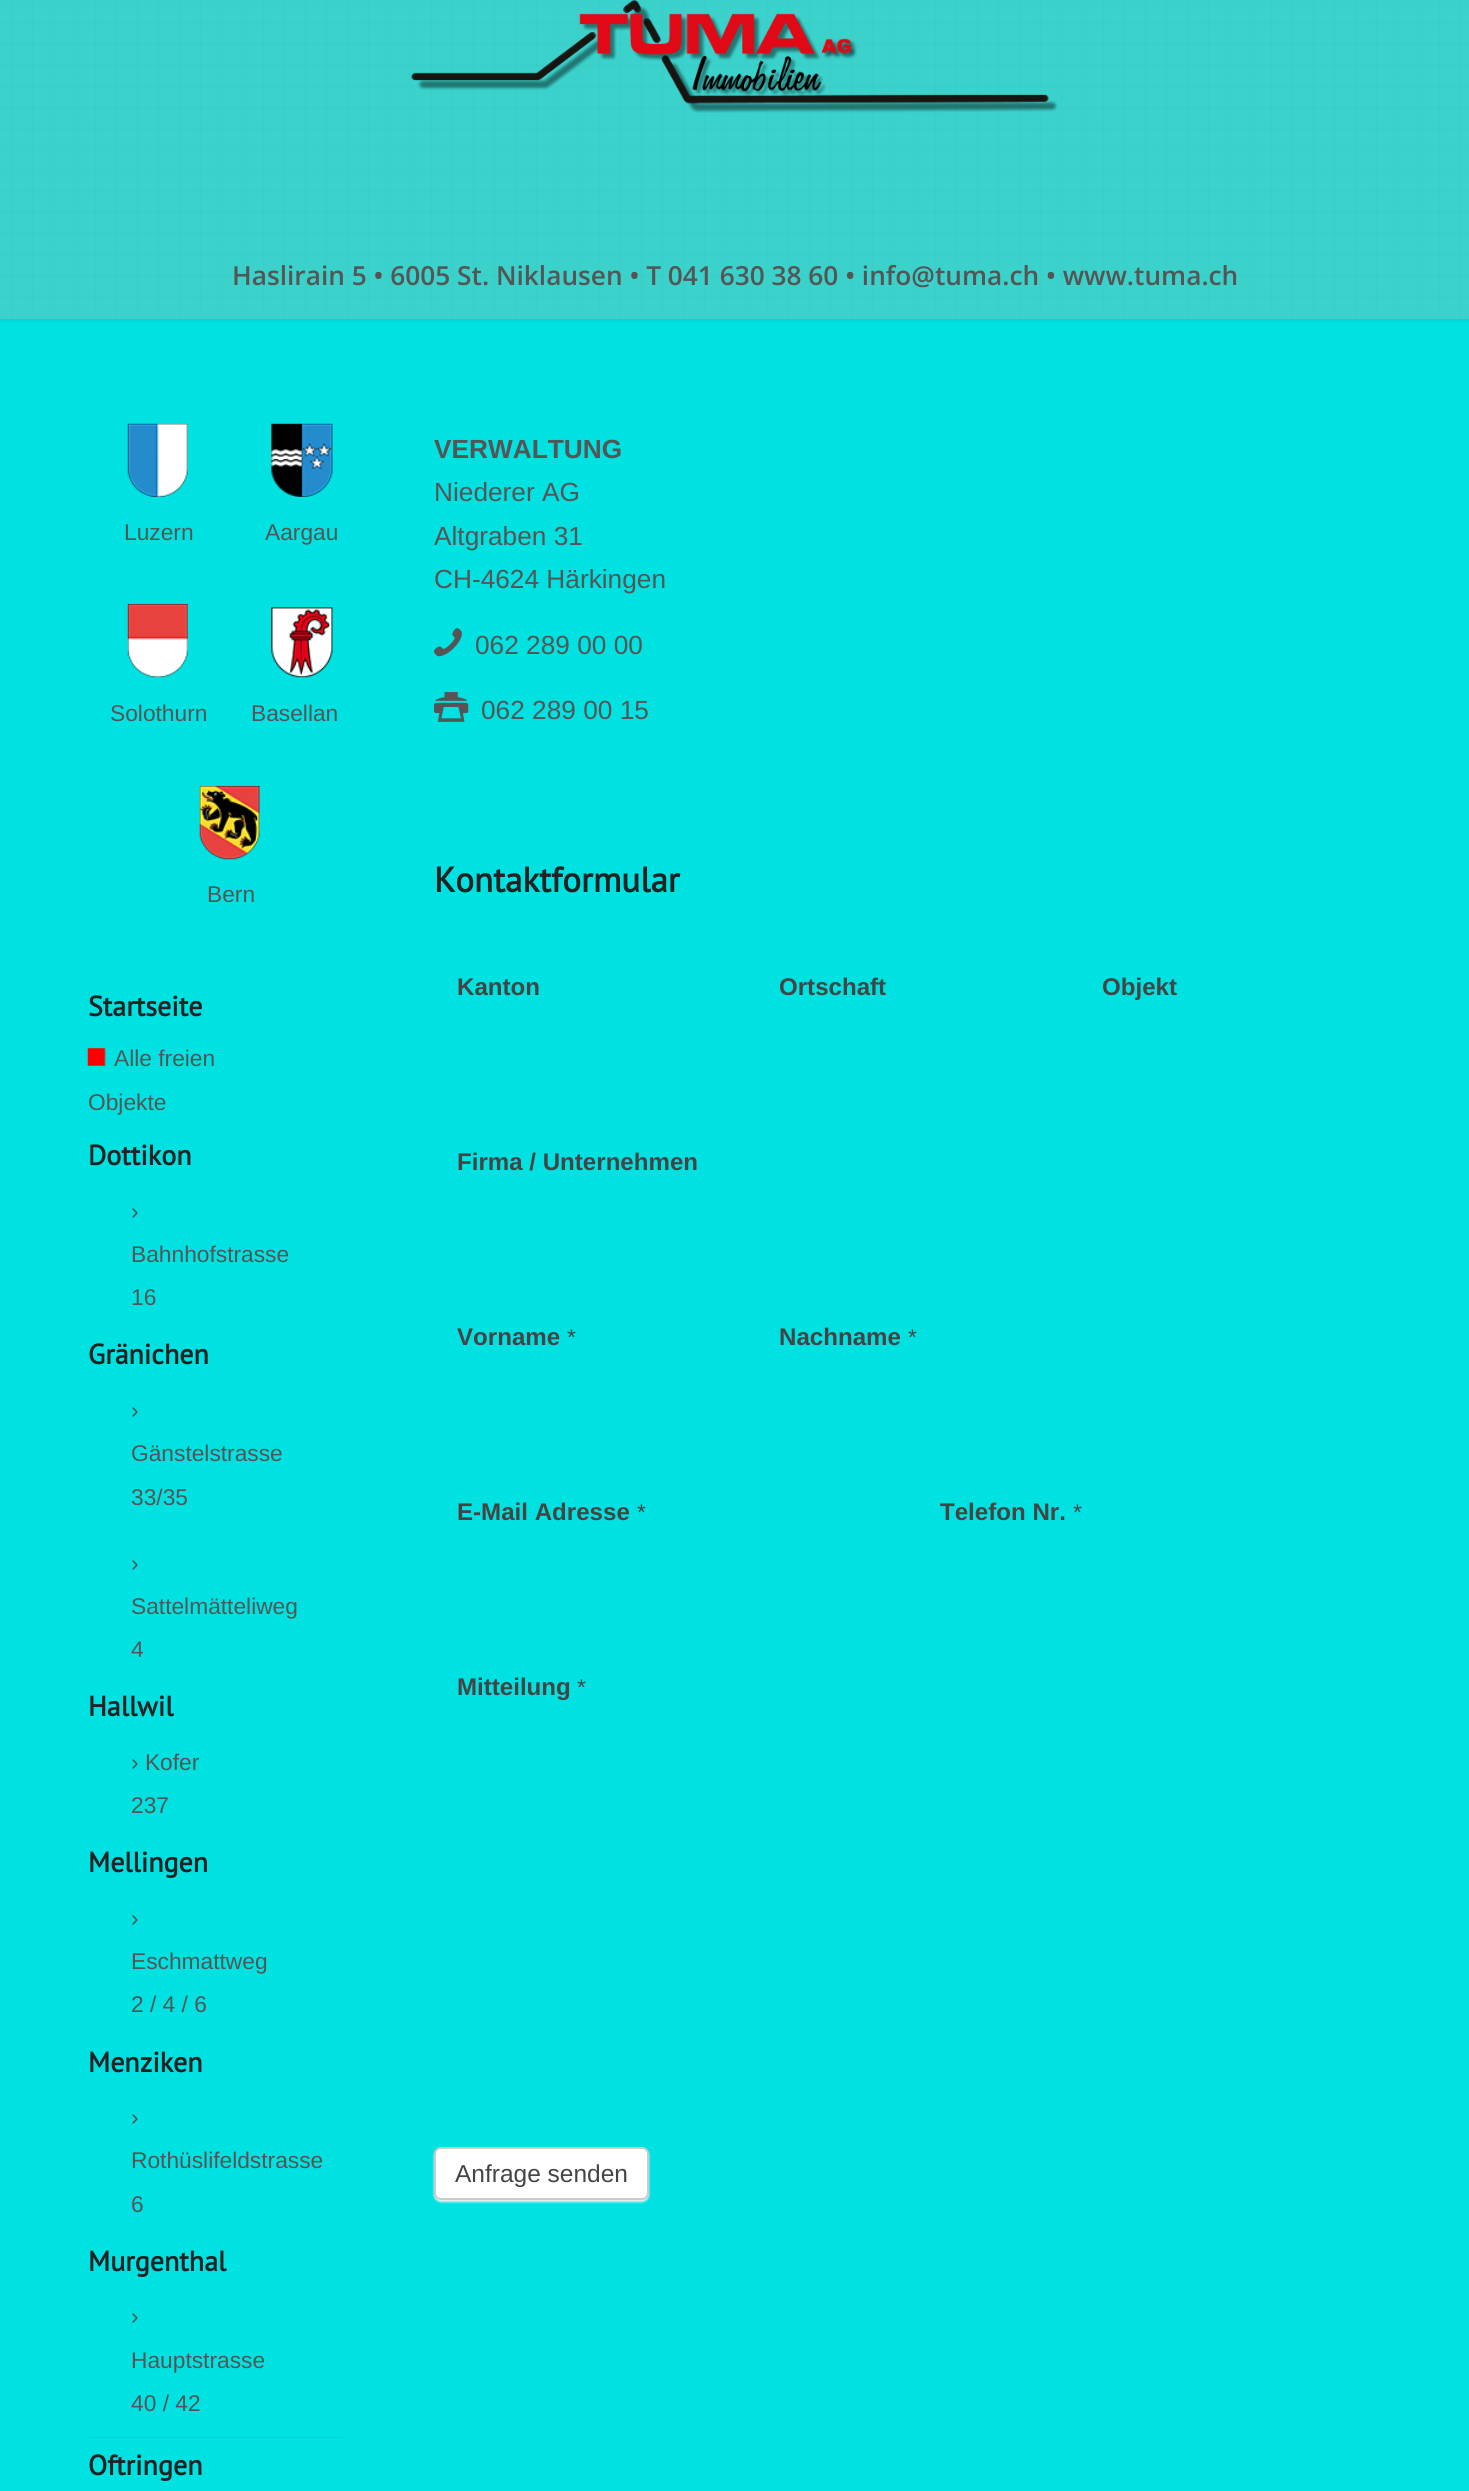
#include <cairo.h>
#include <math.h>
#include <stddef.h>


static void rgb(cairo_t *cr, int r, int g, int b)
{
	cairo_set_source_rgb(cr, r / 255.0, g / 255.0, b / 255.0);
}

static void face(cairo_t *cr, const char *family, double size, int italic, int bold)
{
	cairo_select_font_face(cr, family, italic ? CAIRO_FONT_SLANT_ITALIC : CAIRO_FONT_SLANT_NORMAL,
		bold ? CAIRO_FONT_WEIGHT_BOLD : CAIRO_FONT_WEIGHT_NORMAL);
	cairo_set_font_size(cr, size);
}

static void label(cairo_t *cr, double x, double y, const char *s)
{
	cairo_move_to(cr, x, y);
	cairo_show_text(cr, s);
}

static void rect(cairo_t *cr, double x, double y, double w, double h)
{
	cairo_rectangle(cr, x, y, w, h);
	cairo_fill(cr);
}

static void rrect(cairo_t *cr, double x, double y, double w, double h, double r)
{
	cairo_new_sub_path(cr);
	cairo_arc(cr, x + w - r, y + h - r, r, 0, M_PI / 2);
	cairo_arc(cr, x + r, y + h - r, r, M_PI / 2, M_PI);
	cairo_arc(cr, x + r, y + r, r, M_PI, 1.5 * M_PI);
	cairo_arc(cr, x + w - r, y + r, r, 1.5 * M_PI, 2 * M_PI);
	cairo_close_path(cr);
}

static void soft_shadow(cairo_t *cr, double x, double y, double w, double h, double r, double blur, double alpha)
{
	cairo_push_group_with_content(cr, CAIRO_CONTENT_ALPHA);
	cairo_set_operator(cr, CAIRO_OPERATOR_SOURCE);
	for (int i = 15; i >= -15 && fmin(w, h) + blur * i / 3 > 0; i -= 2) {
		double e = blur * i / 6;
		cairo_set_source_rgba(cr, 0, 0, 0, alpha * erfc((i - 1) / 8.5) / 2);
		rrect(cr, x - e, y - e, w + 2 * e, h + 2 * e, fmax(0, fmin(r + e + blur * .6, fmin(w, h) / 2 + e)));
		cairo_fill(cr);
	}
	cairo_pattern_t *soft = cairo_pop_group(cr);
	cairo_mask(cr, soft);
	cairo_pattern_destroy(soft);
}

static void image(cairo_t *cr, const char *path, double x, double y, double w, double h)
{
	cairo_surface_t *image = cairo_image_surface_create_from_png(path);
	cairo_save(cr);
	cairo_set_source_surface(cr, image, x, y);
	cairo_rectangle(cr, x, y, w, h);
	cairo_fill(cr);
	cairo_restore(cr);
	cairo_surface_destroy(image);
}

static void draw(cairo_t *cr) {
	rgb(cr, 0, 226, 226);
	cairo_paint(cr);
	rgb(cr, 0, 0, 0);
	soft_shadow(cr, -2, -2, 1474, 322, 0, 2, 0.1);
	rgb(cr, 78, 202, 194);
	rect(cr, 0, 0, 1469, 319);
	image(cr, "image0.png", 0, 0, 1469, 319);
	image(cr, "image1.png", 411, 0, 647, 113);
	face(cr, "Open Sans SemiBold", 26.25, 0, 0);
	rgb(cr, 85, 85, 85);
	label(cr, 232, 285, "Haslirain 5 • 6005 St. Niklausen • T 041 630 38 60 • info@tuma.ch • www.tuma.ch");
	image(cr, "image2.png", 127, 423, 61, 74);
	face(cr, "Liberation Sans", 22.75, 0, 0);
	label(cr, 124, 540, "Luzern");
	image(cr, "image3.png", 271, 423, 62, 74);
	label(cr, 265, 540, "Aargau");
	image(cr, "image4.png", 127, 603, 61, 75);
	label(cr, 110, 721, "Solothurn");
	image(cr, "image5.png", 271, 607, 62, 71);
	label(cr, 251, 721, "Basellan");
	image(cr, "image6.png", 199, 785, 61, 75);
	label(cr, 207, 902, "Bern");
	face(cr, "PT Sans", 28, 0, 1);
	rgb(cr, 34, 34, 34);
	label(cr, 88, 1016, "Startseite");
	image(cr, "image7.png", 87, 1048, 19, 18);
	face(cr, "Liberation Sans", 22.75, 0, 0);
	rgb(cr, 85, 85, 85);
	label(cr, 114, 1066, "Alle freien");
	label(cr, 88, 1110, "Objekte");
	face(cr, "PT Sans", 28, 0, 1);
	rgb(cr, 34, 34, 34);
	label(cr, 88, 1165, "Dottikon");
	face(cr, "Liberation Sans", 22.75, 0, 0);
	rgb(cr, 85, 85, 85);
	label(cr, 131, 1219, "›");
	label(cr, 131, 1262, "Bahnhofstrasse");
	label(cr, 131, 1305, "16");
	face(cr, "PT Sans", 28, 0, 1);
	rgb(cr, 34, 34, 34);
	label(cr, 88, 1364, "Gränichen");
	face(cr, "Liberation Sans", 22.75, 0, 0);
	rgb(cr, 85, 85, 85);
	label(cr, 131, 1418, "›");
	label(cr, 131, 1461, "Gänstelstrasse");
	label(cr, 131, 1505, "33/35");
	label(cr, 131, 1571, "›");
	label(cr, 131, 1614, "Sattelmätteliweg");
	label(cr, 131, 1657, "4");
	face(cr, "PT Sans", 28, 0, 1);
	rgb(cr, 34, 34, 34);
	label(cr, 88, 1716, "Hallwil");
	face(cr, "Liberation Sans", 22.75, 0, 0);
	rgb(cr, 85, 85, 85);
	label(cr, 131, 1770, "› Kofer");
	label(cr, 131, 1813, "237");
	face(cr, "PT Sans", 28, 0, 1);
	rgb(cr, 34, 34, 34);
	label(cr, 88, 1872, "Mellingen");
	face(cr, "Liberation Sans", 22.75, 0, 0);
	rgb(cr, 85, 85, 85);
	label(cr, 131, 1926, "›");
	label(cr, 131, 1969, "Eschmattweg");
	label(cr, 131, 2012, "2 / 4 / 6");
	face(cr, "PT Sans", 28, 0, 1);
	rgb(cr, 34, 34, 34);
	label(cr, 88, 2072, "Menziken");
	face(cr, "Liberation Sans", 22.75, 0, 0);
	rgb(cr, 85, 85, 85);
	label(cr, 131, 2125, "›");
	label(cr, 131, 2168, "Rothüslifeldstrasse");
	label(cr, 131, 2212, "6");
	face(cr, "PT Sans", 28, 0, 1);
	rgb(cr, 34, 34, 34);
	label(cr, 88, 2271, "Murgenthal");
	face(cr, "Liberation Sans", 22.75, 0, 0);
	rgb(cr, 85, 85, 85);
	label(cr, 131, 2324, "›");
	label(cr, 131, 2368, "Hauptstrasse");
	label(cr, 131, 2411, "40 / 42");
	cairo_save(cr);
	cairo_rectangle(cr, 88, 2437, 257, 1);
	cairo_clip(cr);
	rgb(cr, 0, 0, 0);
	soft_shadow(cr, 88, 2438, 260, 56, 0, 1, 0.2);
	cairo_restore(cr);
	face(cr, "PT Sans", 28, 0, 1);
	rgb(cr, 34, 34, 34);
	label(cr, 88, 2475, "Oftringen");
	face(cr, "Liberation Sans", 26.25, 0, 1);
	rgb(cr, 85, 85, 85);
	label(cr, 434, 458, "VERWALTUNG");
	face(cr, "Liberation Sans", 26.25, 0, 0);
	label(cr, 434, 501, "Niederer AG");
	label(cr, 434, 545, "Altgraben 31");
	label(cr, 434, 588, "CH-4624 Härkingen");
	image(cr, "image8.png", 434, 628, 28, 29);
	label(cr, 475, 654, "062 289 00 00");
	image(cr, "image9.png", 434, 692, 35, 30);
	label(cr, 481, 719, "062 289 00 15");
	face(cr, "PT Sans", 35, 0, 1);
	rgb(cr, 34, 34, 34);
	label(cr, 434, 892, "Kontaktformular");
	face(cr, "Liberation Sans", 24.1, 0, 1);
	rgb(cr, 68, 68, 68);
	label(cr, 457, 995, "Kanton");
	label(cr, 779, 995, "Ortschaft");
	label(cr, 1102, 995, "Objekt");
	label(cr, 457, 1170, "Firma / Unternehmen");
	label(cr, 457, 1345, "Vorname");
	face(cr, "Liberation Sans", 22.75, 0, 0);
	label(cr, 567, 1345, "*");
	face(cr, "Liberation Sans", 24.1, 0, 1);
	label(cr, 779, 1345, "Nachname");
	face(cr, "Liberation Sans", 22.75, 0, 0);
	label(cr, 908, 1345, "*");
	face(cr, "Liberation Sans", 24.1, 0, 1);
	label(cr, 457, 1520, "E-Mail Adresse");
	face(cr, "Liberation Sans", 22.75, 0, 0);
	label(cr, 637, 1520, "*");
	face(cr, "Liberation Sans", 24.1, 0, 1);
	label(cr, 940, 1520, "Telefon Nr.");
	face(cr, "Liberation Sans", 22.75, 0, 0);
	label(cr, 1073, 1520, "*");
	face(cr, "Liberation Sans", 24.1, 0, 1);
	label(cr, 457, 1695, "Mitteilung");
	face(cr, "Liberation Sans", 22.75, 0, 0);
	label(cr, 577, 1695, "*");
	rgb(cr, 238, 238, 238);
	soft_shadow(cr, 434, 2149, 215, 53, 7, 1, 1);
	rgb(cr, 255, 255, 255);
	rrect(cr, 435, 2148, 213, 51, 6);
	cairo_fill_preserve(cr);
	rgb(cr, 204, 204, 204);
	cairo_stroke(cr);
	face(cr, "Liberation Sans", 24.5, 0, 0);
	rgb(cr, 68, 68, 68);
	label(cr, 455, 2182, "Anfrage senden");
}

int main(void) {
	cairo_surface_t *surface = cairo_image_surface_create(CAIRO_FORMAT_RGB24, 1469, 2491);
	cairo_t *cr = cairo_create(surface);
	cairo_font_options_t *options = cairo_font_options_create();
	cairo_font_options_set_hint_metrics(options, CAIRO_HINT_METRICS_OFF);
	cairo_font_options_set_hint_style(options, CAIRO_HINT_STYLE_NONE);
	cairo_set_font_options(cr, options);
	cairo_set_miter_limit(cr, 4);
	draw(cr);
	cairo_surface_write_to_png(surface, "render.png");
	cairo_font_options_destroy(options);
	cairo_destroy(cr);
	cairo_surface_destroy(surface);
	return 0;
}
